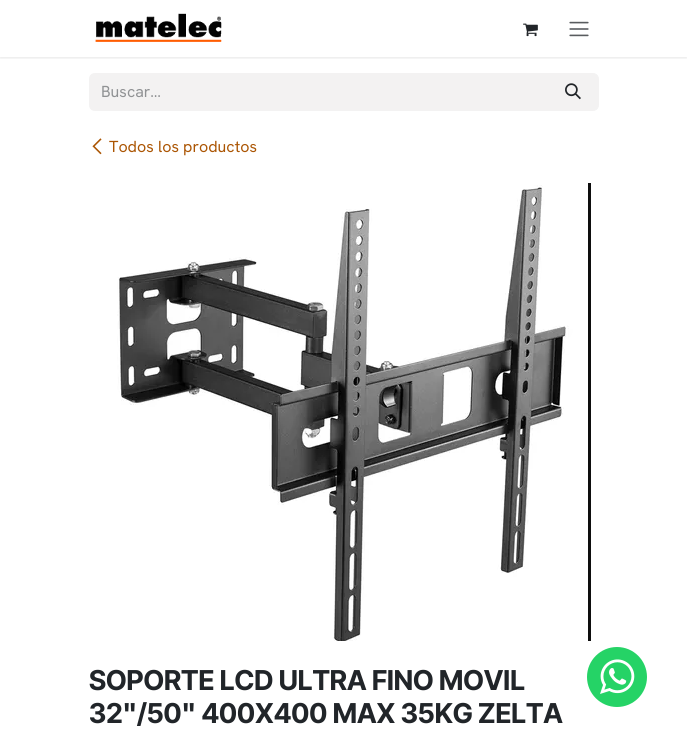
#include <cairo.h>
#include <math.h>
#include <stddef.h>


static void rgb(cairo_t *cr, int r, int g, int b)
{
	cairo_set_source_rgb(cr, r / 255.0, g / 255.0, b / 255.0);
}

static void face(cairo_t *cr, const char *family, double size, int italic, int bold)
{
	cairo_select_font_face(cr, family, italic ? CAIRO_FONT_SLANT_ITALIC : CAIRO_FONT_SLANT_NORMAL,
		bold ? CAIRO_FONT_WEIGHT_BOLD : CAIRO_FONT_WEIGHT_NORMAL);
	cairo_set_font_size(cr, size);
}

static void label(cairo_t *cr, double x, double y, const char *s)
{
	cairo_move_to(cr, x, y);
	cairo_show_text(cr, s);
}

static void rrect(cairo_t *cr, double x, double y, double w, double h, double r)
{
	cairo_new_sub_path(cr);
	cairo_arc(cr, x + w - r, y + h - r, r, 0, M_PI / 2);
	cairo_arc(cr, x + r, y + h - r, r, M_PI / 2, M_PI);
	cairo_arc(cr, x + r, y + r, r, M_PI, 1.5 * M_PI);
	cairo_arc(cr, x + w - r, y + r, r, 1.5 * M_PI, 2 * M_PI);
	cairo_close_path(cr);
}

static void soft_shadow(cairo_t *cr, double x, double y, double w, double h, double r, double blur, double alpha)
{
	cairo_push_group_with_content(cr, CAIRO_CONTENT_ALPHA);
	cairo_set_operator(cr, CAIRO_OPERATOR_SOURCE);
	for (int i = 15; i >= -15 && fmin(w, h) + blur * i / 3 > 0; i -= 2) {
		double e = blur * i / 6;
		cairo_set_source_rgba(cr, 0, 0, 0, alpha * erfc((i - 1) / 8.5) / 2);
		rrect(cr, x - e, y - e, w + 2 * e, h + 2 * e, fmax(0, fmin(r + e + blur * .6, fmin(w, h) / 2 + e)));
		cairo_fill(cr);
	}
	cairo_pattern_t *soft = cairo_pop_group(cr);
	cairo_mask(cr, soft);
	cairo_pattern_destroy(soft);
}

static void image(cairo_t *cr, const char *path, double x, double y, double w, double h)
{
	cairo_surface_t *image = cairo_image_surface_create_from_png(path);
	cairo_save(cr);
	cairo_set_source_surface(cr, image, x, y);
	cairo_rectangle(cr, x, y, w, h);
	cairo_fill(cr);
	cairo_restore(cr);
	cairo_surface_destroy(image);
}

static void draw(cairo_t *cr) {
	rgb(cr, 255, 255, 255);
	cairo_paint(cr);
	cairo_save(cr);
	cairo_rectangle(cr, 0, 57, 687, 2);
	cairo_clip(cr);
	rgb(cr, 0, 0, 0);
	soft_shadow(cr, 0, 1, 687, 57, 0, 1.5, 0.1);
	cairo_restore(cr);
	image(cr, "image0.png", 95, 13, 127, 29);
	image(cr, "image1.png", 523, 23, 15, 14);
	image(cr, "image2.png", 569, 21, 20, 16);
	rgb(cr, 243, 242, 242);
	cairo_new_path(cr);
	cairo_move_to(cr, 95, 73);
	cairo_line_to(cr, 549, 73);
	cairo_line_to(cr, 549, 111);
	cairo_line_to(cr, 95, 111);
	cairo_curve_to(cr, 91.5, 111, 89, 108.5, 89, 105);
	cairo_line_to(cr, 89, 79);
	cairo_curve_to(cr, 89, 75.5, 91.5, 73, 95, 73);
	cairo_close_path(cr);
	cairo_fill(cr);
	face(cr, "Hanken Grotesk", 16, 0, 0);
	rgb(cr, 144, 146, 148);
	label(cr, 101, 97, "Buscar…");
	rgb(cr, 243, 242, 242);
	cairo_new_path(cr);
	cairo_move_to(cr, 548.5, 73.5);
	cairo_line_to(cr, 593, 73.5);
	cairo_curve_to(cr, 596, 73.5, 598.5, 76, 598.5, 79);
	cairo_line_to(cr, 598.5, 105);
	cairo_curve_to(cr, 598.5, 108, 596, 110.5, 593, 110.5);
	cairo_line_to(cr, 548.5, 110.5);
	cairo_close_path(cr);
	cairo_fill_preserve(cr);
	cairo_set_line_width(cr, 1);
	cairo_stroke(cr);
	image(cr, "image3.png", 565, 83, 16, 17);
	image(cr, "image4.png", 92, 138, 10, 17);
	rgb(cr, 171, 85, 3);
	label(cr, 109, 152, "Todos los productos");
	image(cr, "image5.png", 117, 183, 474, 458);
	face(cr, "Inter Tight", 27.4, 0, 1);
	rgb(cr, 33, 37, 41);
	label(cr, 89, 690, "SOPORTE LCD ULTRA FINO MOVIL");
	label(cr, 89, 723, "32\"/50\" 400X400 MAX 35KG ZELTA");
	rgb(cr, 37, 211, 102);
	cairo_new_path(cr);
	cairo_arc(cr, 617, 677, 30, 0, 2 * M_PI);
	cairo_fill(cr);
	image(cr, "image6.png", 600, 659, 35, 35);
}

int main(void) {
	cairo_surface_t *surface = cairo_image_surface_create(CAIRO_FORMAT_RGB24, 687, 747);
	cairo_t *cr = cairo_create(surface);
	cairo_font_options_t *options = cairo_font_options_create();
	cairo_font_options_set_hint_metrics(options, CAIRO_HINT_METRICS_OFF);
	cairo_font_options_set_hint_style(options, CAIRO_HINT_STYLE_NONE);
	cairo_set_font_options(cr, options);
	cairo_set_miter_limit(cr, 4);
	draw(cr);
	cairo_surface_write_to_png(surface, "render.png");
	cairo_font_options_destroy(options);
	cairo_destroy(cr);
	cairo_surface_destroy(surface);
	return 0;
}
